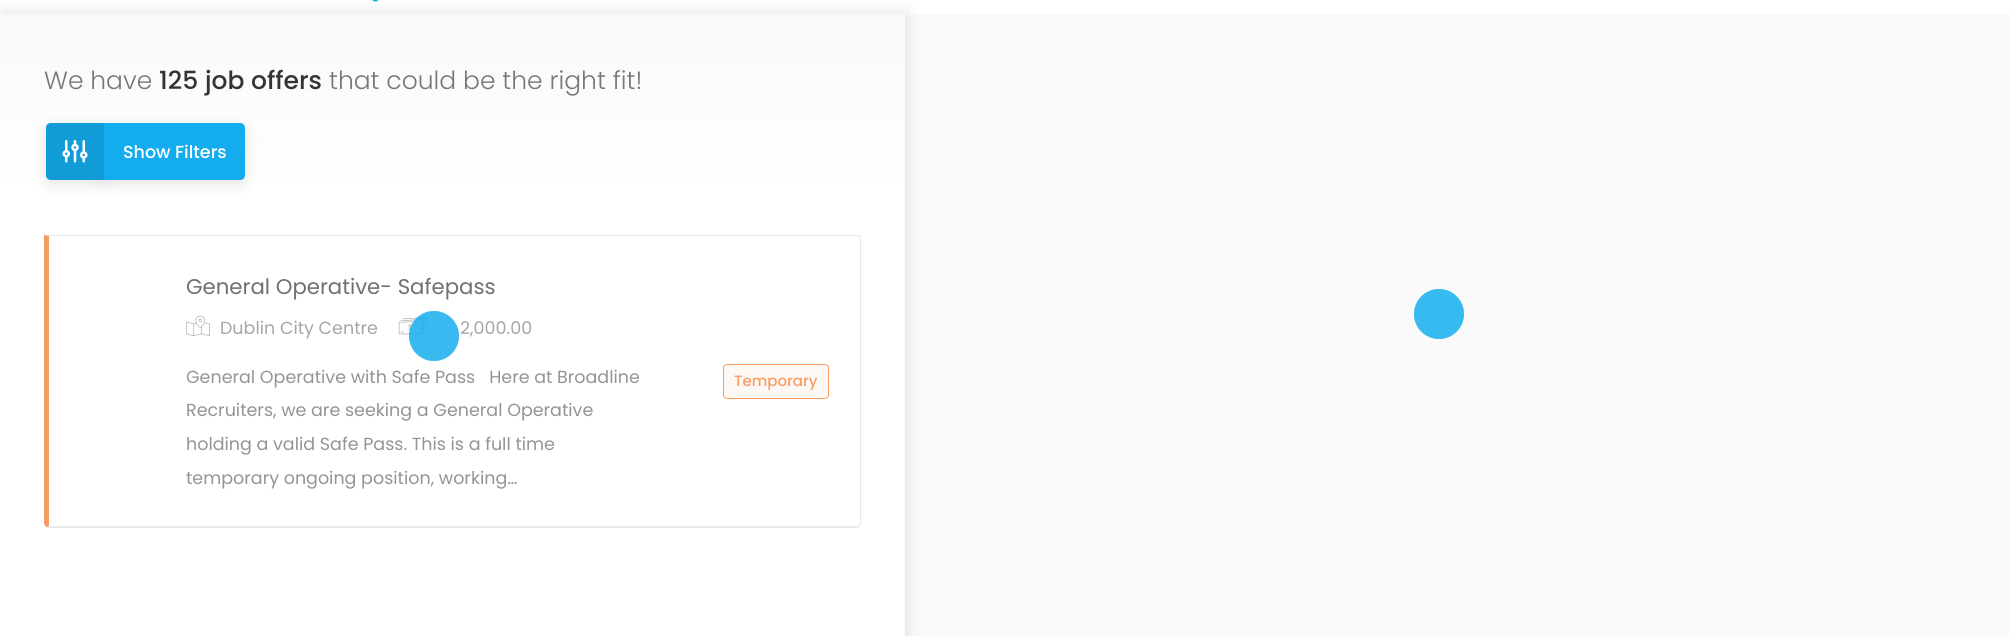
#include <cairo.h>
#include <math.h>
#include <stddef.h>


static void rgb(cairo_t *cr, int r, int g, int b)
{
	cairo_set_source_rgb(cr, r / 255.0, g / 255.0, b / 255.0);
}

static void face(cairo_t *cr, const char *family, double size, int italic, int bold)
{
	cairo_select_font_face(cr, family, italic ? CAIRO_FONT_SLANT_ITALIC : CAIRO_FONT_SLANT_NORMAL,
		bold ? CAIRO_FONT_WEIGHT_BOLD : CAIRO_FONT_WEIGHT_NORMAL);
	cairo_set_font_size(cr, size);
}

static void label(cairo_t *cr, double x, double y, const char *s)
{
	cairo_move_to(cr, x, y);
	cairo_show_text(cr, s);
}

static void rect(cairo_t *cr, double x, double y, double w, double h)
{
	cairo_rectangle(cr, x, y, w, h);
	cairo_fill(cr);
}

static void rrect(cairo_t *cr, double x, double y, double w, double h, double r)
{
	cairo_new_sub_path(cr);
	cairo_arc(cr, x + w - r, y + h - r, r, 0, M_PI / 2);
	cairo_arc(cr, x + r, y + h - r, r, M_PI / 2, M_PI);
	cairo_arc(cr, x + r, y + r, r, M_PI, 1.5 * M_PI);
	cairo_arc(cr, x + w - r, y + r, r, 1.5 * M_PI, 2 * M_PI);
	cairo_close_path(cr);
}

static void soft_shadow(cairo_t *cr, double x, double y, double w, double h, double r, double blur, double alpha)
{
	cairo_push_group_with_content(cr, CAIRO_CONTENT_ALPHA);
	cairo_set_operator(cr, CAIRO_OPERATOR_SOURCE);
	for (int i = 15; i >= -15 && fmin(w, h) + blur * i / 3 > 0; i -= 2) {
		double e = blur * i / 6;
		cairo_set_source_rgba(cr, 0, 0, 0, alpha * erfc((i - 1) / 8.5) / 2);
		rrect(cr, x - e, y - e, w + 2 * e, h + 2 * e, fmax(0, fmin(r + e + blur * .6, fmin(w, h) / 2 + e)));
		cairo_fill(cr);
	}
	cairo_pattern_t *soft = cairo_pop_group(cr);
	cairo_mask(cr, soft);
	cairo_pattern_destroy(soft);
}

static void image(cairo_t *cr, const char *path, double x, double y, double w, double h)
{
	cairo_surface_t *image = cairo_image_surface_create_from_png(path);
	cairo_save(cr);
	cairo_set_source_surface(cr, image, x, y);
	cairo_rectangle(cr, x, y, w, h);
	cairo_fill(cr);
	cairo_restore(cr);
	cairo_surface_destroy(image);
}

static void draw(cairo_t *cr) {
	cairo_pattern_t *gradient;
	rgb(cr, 255, 255, 255);
	cairo_paint(cr);
	image(cr, "image0.png", 372, 0, 6, 2);
	rgb(cr, 250, 250, 250);
	rect(cr, 905, 14, 1104, 622);
	cairo_save(cr);
	cairo_set_fill_rule(cr, CAIRO_FILL_RULE_EVEN_ODD);
	cairo_new_path(cr);
	cairo_move_to(cr, 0, 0);
	cairo_line_to(cr, 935, 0);
	cairo_line_to(cr, 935, 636);
	cairo_line_to(cr, 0, 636);
	cairo_close_path(cr);
	cairo_move_to(cr, 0, 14);
	cairo_line_to(cr, 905, 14);
	cairo_line_to(cr, 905, 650);
	cairo_line_to(cr, 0, 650);
	cairo_close_path(cr);
	cairo_clip(cr);
	rgb(cr, 0, 0, 0);
	soft_shadow(cr, 0, 14, 905, 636, 0, 9.5, 0.12);
	cairo_restore(cr);
	gradient = cairo_pattern_create_linear(453, 14, 453, 193);
	cairo_pattern_add_color_stop_rgba(gradient, 0, 0.976, 0.976, 0.976, 1);
	cairo_pattern_add_color_stop_rgba(gradient, 1, 1, 1, 1, 1);
	cairo_set_source(cr, gradient);
	cairo_pattern_destroy(gradient);
	rrect(cr, 0, 14, 905, 179, 4);
	cairo_fill(cr);
	face(cr, "Poppins Light", 25, 0, 0);
	rgb(cr, 119, 119, 119);
	label(cr, 44, 89, "We have");
	face(cr, "Poppins Medium", 25, 0, 0);
	rgb(cr, 51, 51, 51);
	label(cr, 159, 89, "125");
	label(cr, 205, 89, "job offers");
	face(cr, "Poppins Light", 25, 0, 0);
	rgb(cr, 119, 119, 119);
	label(cr, 329, 89, "that could be the right fit!");
	rgb(cr, 0, 0, 0);
	soft_shadow(cr, 104, 128, 141, 57, 5, 7.5, 0.1);
	soft_shadow(cr, 46, 128, 58, 57, 5, 7.5, 0.1);
	rgb(cr, 19, 173, 239);
	cairo_new_path(cr);
	cairo_move_to(cr, 51, 123);
	cairo_line_to(cr, 104, 123);
	cairo_line_to(cr, 104, 180);
	cairo_line_to(cr, 51, 180);
	cairo_curve_to(cr, 48, 180, 46, 178, 46, 175);
	cairo_line_to(cr, 46, 128);
	cairo_curve_to(cr, 46, 125, 48, 123, 51, 123);
	cairo_close_path(cr);
	cairo_fill(cr);
	cairo_set_source_rgba(cr, 0, 0, 0, 0.1);
	cairo_new_path(cr);
	cairo_move_to(cr, 51, 123);
	cairo_line_to(cr, 104, 123);
	cairo_line_to(cr, 104, 180);
	cairo_line_to(cr, 51, 180);
	cairo_curve_to(cr, 48, 180, 46, 178, 46, 175);
	cairo_line_to(cr, 46, 128);
	cairo_curve_to(cr, 46, 125, 48, 123, 51, 123);
	cairo_close_path(cr);
	cairo_fill(cr);
	image(cr, "image1.png", 62, 140, 26, 23);
	rgb(cr, 19, 173, 239);
	cairo_new_path(cr);
	cairo_move_to(cr, 104, 123);
	cairo_line_to(cr, 240, 123);
	cairo_curve_to(cr, 243, 123, 245, 125, 245, 128);
	cairo_line_to(cr, 245, 175);
	cairo_curve_to(cr, 245, 178, 243, 180, 240, 180);
	cairo_line_to(cr, 104, 180);
	cairo_close_path(cr);
	cairo_fill(cr);
	face(cr, "Poppins Medium", 17.5, 0, 0);
	rgb(cr, 255, 255, 255);
	label(cr, 123, 158, "Show Filters");
	rgb(cr, 233, 233, 233);
	cairo_new_path(cr);
	cairo_move_to(cr, 44, 235);
	cairo_line_to(cr, 49, 236);
	cairo_line_to(cr, 860, 236);
	cairo_line_to(cr, 861, 235);
	cairo_close_path(cr);
	cairo_fill(cr);
	cairo_new_path(cr);
	cairo_move_to(cr, 861, 235);
	cairo_line_to(cr, 861, 522);
	cairo_curve_to(cr, 861, 523, 861, 525, 860, 526);
	cairo_line_to(cr, 859, 525);
	cairo_curve_to(cr, 860, 524, 860, 523, 860, 522);
	cairo_line_to(cr, 860, 236);
	cairo_close_path(cr);
	cairo_fill(cr);
	cairo_new_path(cr);
	cairo_move_to(cr, 47, 528);
	cairo_line_to(cr, 46, 527);
	cairo_line_to(cr, 50, 526);
	cairo_line_to(cr, 856, 526);
	cairo_curve_to(cr, 857, 526, 858, 526, 859, 525);
	cairo_line_to(cr, 860, 526);
	cairo_line_to(cr, 858, 528);
	cairo_close_path(cr);
	cairo_fill(cr);
	rgb(cr, 247, 157, 100);
	cairo_new_path(cr);
	cairo_move_to(cr, 44, 235);
	cairo_line_to(cr, 44, 522);
	cairo_curve_to(cr, 44, 524, 45, 526, 46, 527);
	cairo_line_to(cr, 50, 526);
	cairo_line_to(cr, 49, 526);
	cairo_line_to(cr, 49, 236);
	cairo_close_path(cr);
	cairo_fill(cr);
	face(cr, "Poppins", 21.25, 0, 0);
	rgb(cr, 112, 112, 112);
	label(cr, 186, 294, "General Operative- Safepass");
	rgb(cr, 254, 248, 244);
	rrect(cr, 723.5, 364.5, 105, 34, 3.5);
	cairo_fill_preserve(cr);
	rgb(cr, 247, 157, 100);
	cairo_set_line_width(cr, 1);
	cairo_stroke(cr);
	face(cr, "Poppins Medium", 15, 0, 0);
	label(cr, 734, 386, "Temporary");
	image(cr, "image2.png", 186, 315, 24, 22);
	face(cr, "Poppins", 17.5, 0, 0);
	rgb(cr, 166, 166, 166);
	label(cr, 220, 334, "Dublin City Centre");
	image(cr, "image3.png", 398, 317, 29, 18);
	label(cr, 460, 334, "2,000.00");
	rgb(cr, 148, 148, 148);
	label(cr, 186, 383, "General Operative with Safe Pass   Here at Broadline");
	label(cr, 186, 416, "Recruiters, we are seeking a General Operative");
	label(cr, 186, 450, "holding a valid Safe Pass. This is a full time");
	label(cr, 186, 484, "temporary ongoing position, working…");
	cairo_set_source_rgba(cr, 0.075, 0.678, 0.937, 0.6);
	cairo_new_path(cr);
	cairo_arc(cr, 434, 336, 25, 0, 2 * M_PI);
	cairo_fill(cr);
	cairo_arc(cr, 434, 336, 25, 0, 2 * M_PI);
	cairo_fill(cr);
	rgb(cr, 111, 204, 243);
	cairo_arc(cr, 1439, 314, 25, 0, 2 * M_PI);
	cairo_fill(cr);
	cairo_set_source_rgba(cr, 0.075, 0.678, 0.937, 0.6);
	cairo_arc(cr, 1439, 314, 25, 0, 2 * M_PI);
	cairo_fill(cr);
}

int main(void) {
	cairo_surface_t *surface = cairo_image_surface_create(CAIRO_FORMAT_RGB24, 2009, 636);
	cairo_t *cr = cairo_create(surface);
	cairo_font_options_t *options = cairo_font_options_create();
	cairo_font_options_set_hint_metrics(options, CAIRO_HINT_METRICS_OFF);
	cairo_font_options_set_hint_style(options, CAIRO_HINT_STYLE_NONE);
	cairo_set_font_options(cr, options);
	cairo_set_miter_limit(cr, 4);
	draw(cr);
	cairo_surface_write_to_png(surface, "render.png");
	cairo_font_options_destroy(options);
	cairo_destroy(cr);
	cairo_surface_destroy(surface);
	return 0;
}
